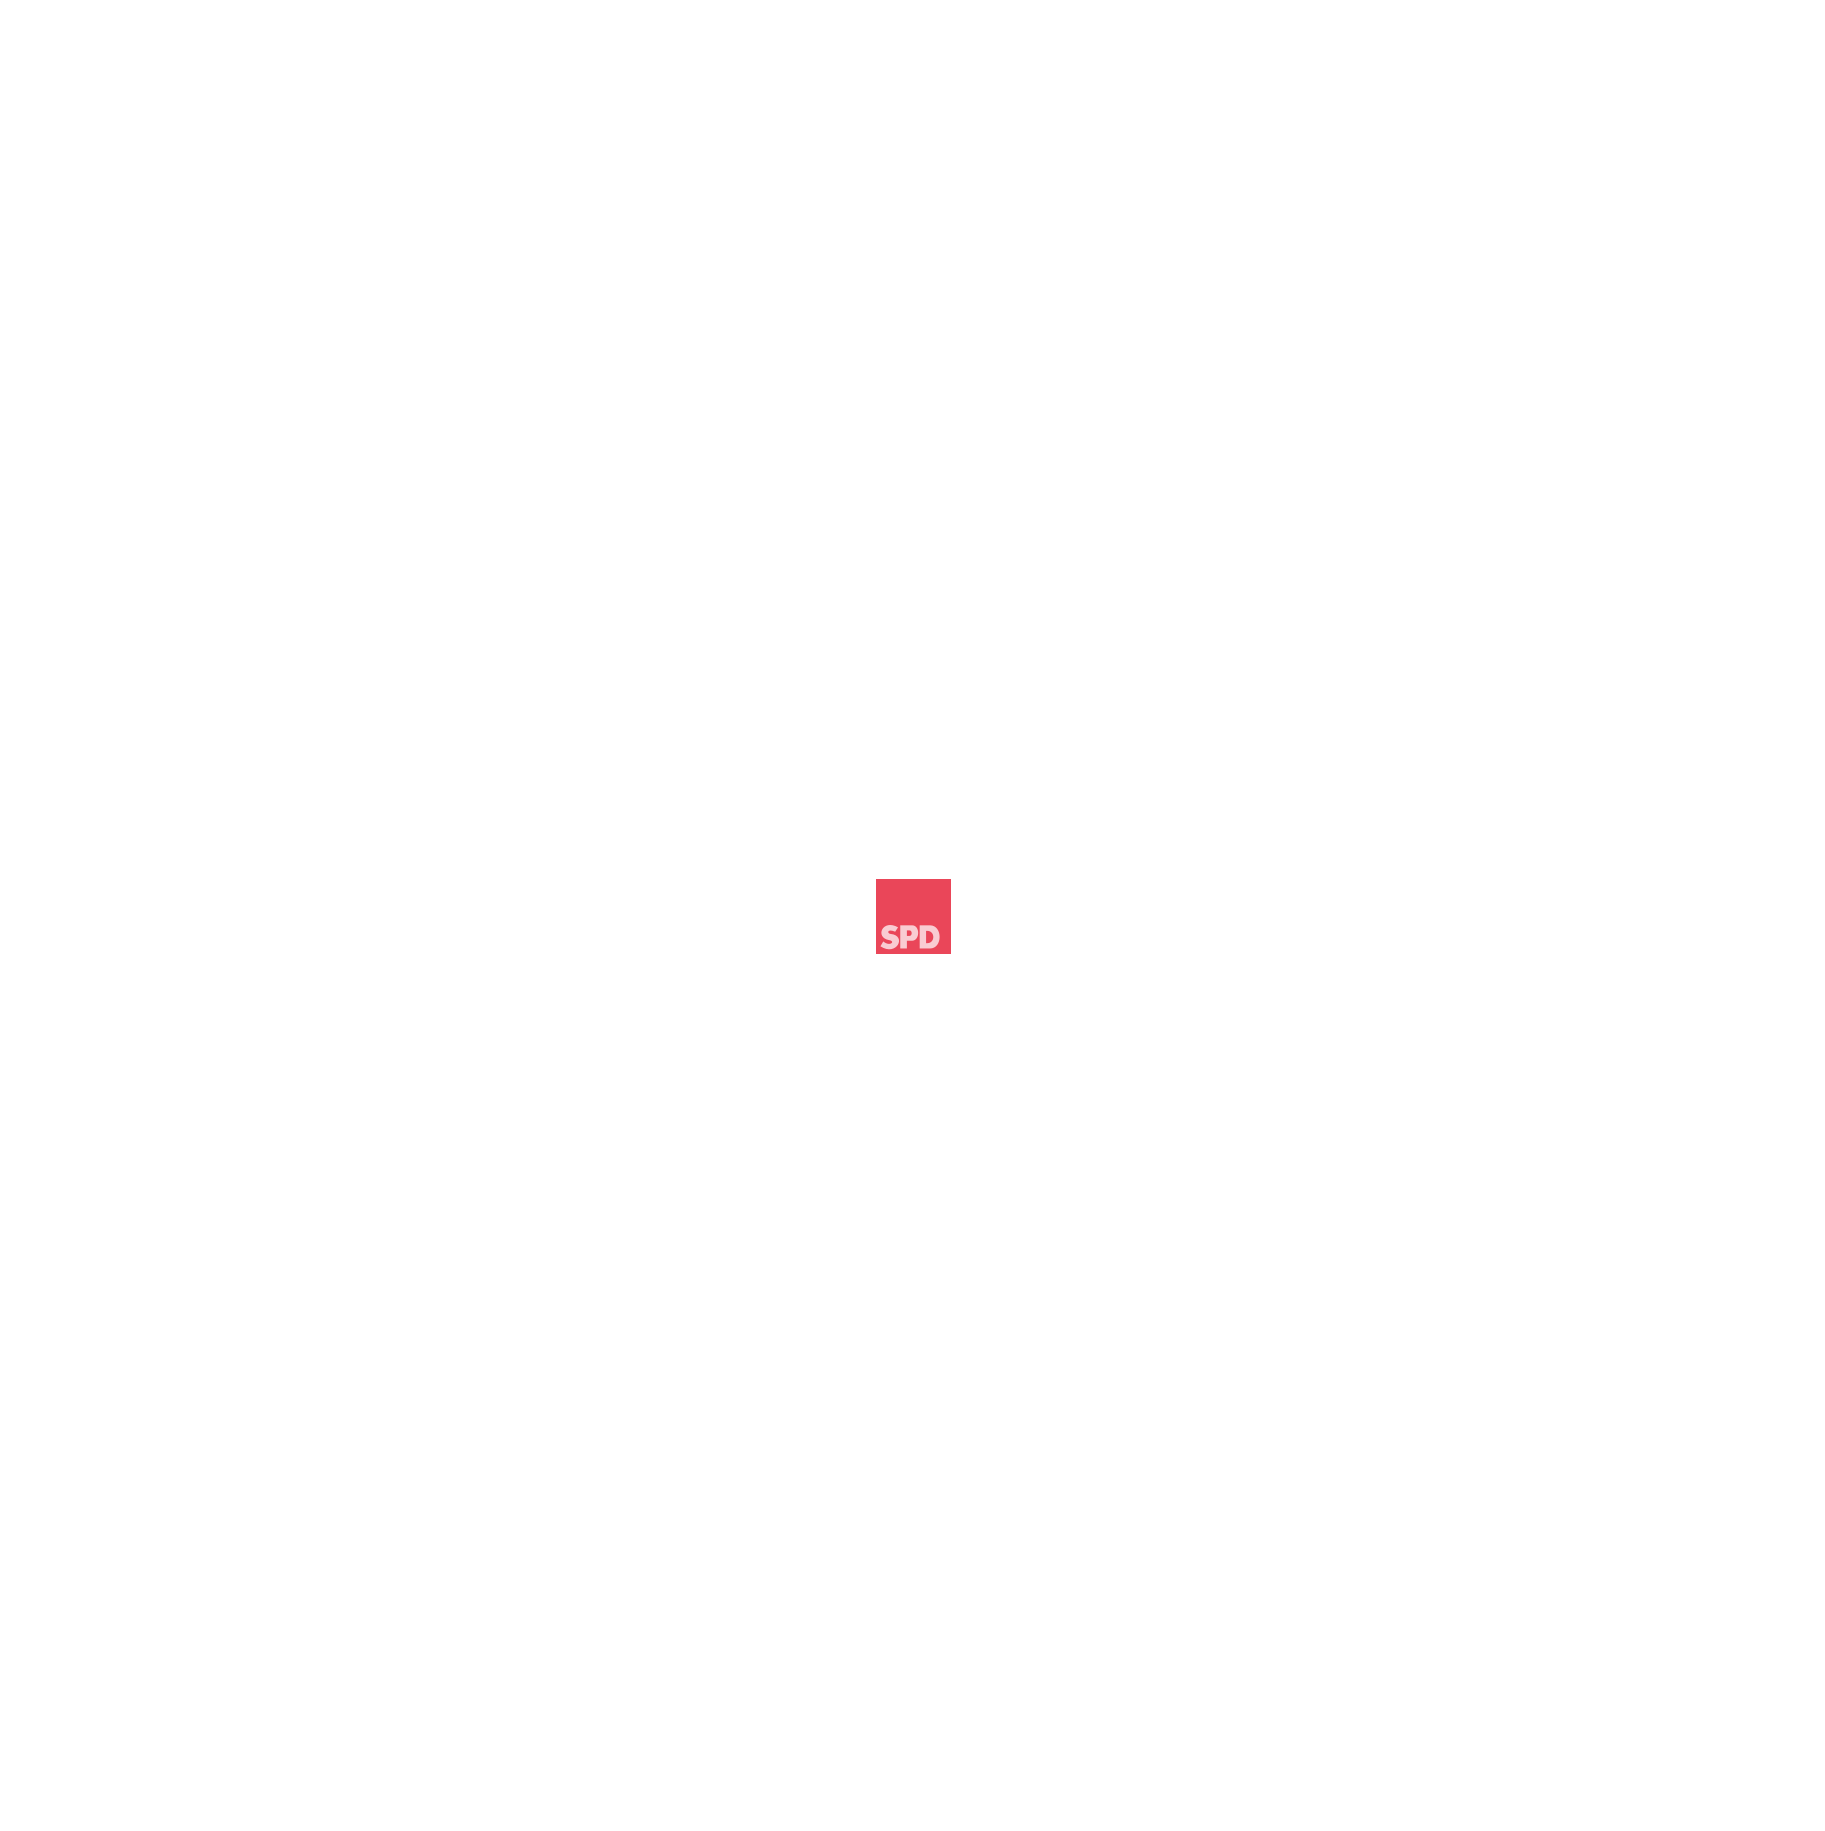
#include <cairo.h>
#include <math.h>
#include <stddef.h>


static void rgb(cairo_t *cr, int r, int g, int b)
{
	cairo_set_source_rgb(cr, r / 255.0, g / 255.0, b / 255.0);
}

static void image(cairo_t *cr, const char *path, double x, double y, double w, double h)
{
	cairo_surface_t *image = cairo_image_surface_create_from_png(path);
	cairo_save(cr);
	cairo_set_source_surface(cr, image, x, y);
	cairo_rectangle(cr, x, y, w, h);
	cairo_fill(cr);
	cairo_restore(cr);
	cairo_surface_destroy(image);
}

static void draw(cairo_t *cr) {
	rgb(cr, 255, 255, 255);
	cairo_paint(cr);
	image(cr, "image0.png", 876, 879, 75, 75);
}

int main(void) {
	cairo_surface_t *surface = cairo_image_surface_create(CAIRO_FORMAT_RGB24, 1825, 1831);
	cairo_t *cr = cairo_create(surface);
	cairo_font_options_t *options = cairo_font_options_create();
	cairo_font_options_set_hint_metrics(options, CAIRO_HINT_METRICS_OFF);
	cairo_font_options_set_hint_style(options, CAIRO_HINT_STYLE_NONE);
	cairo_set_font_options(cr, options);
	cairo_set_miter_limit(cr, 4);
	draw(cr);
	cairo_surface_write_to_png(surface, "render.png");
	cairo_font_options_destroy(options);
	cairo_destroy(cr);
	cairo_surface_destroy(surface);
	return 0;
}
